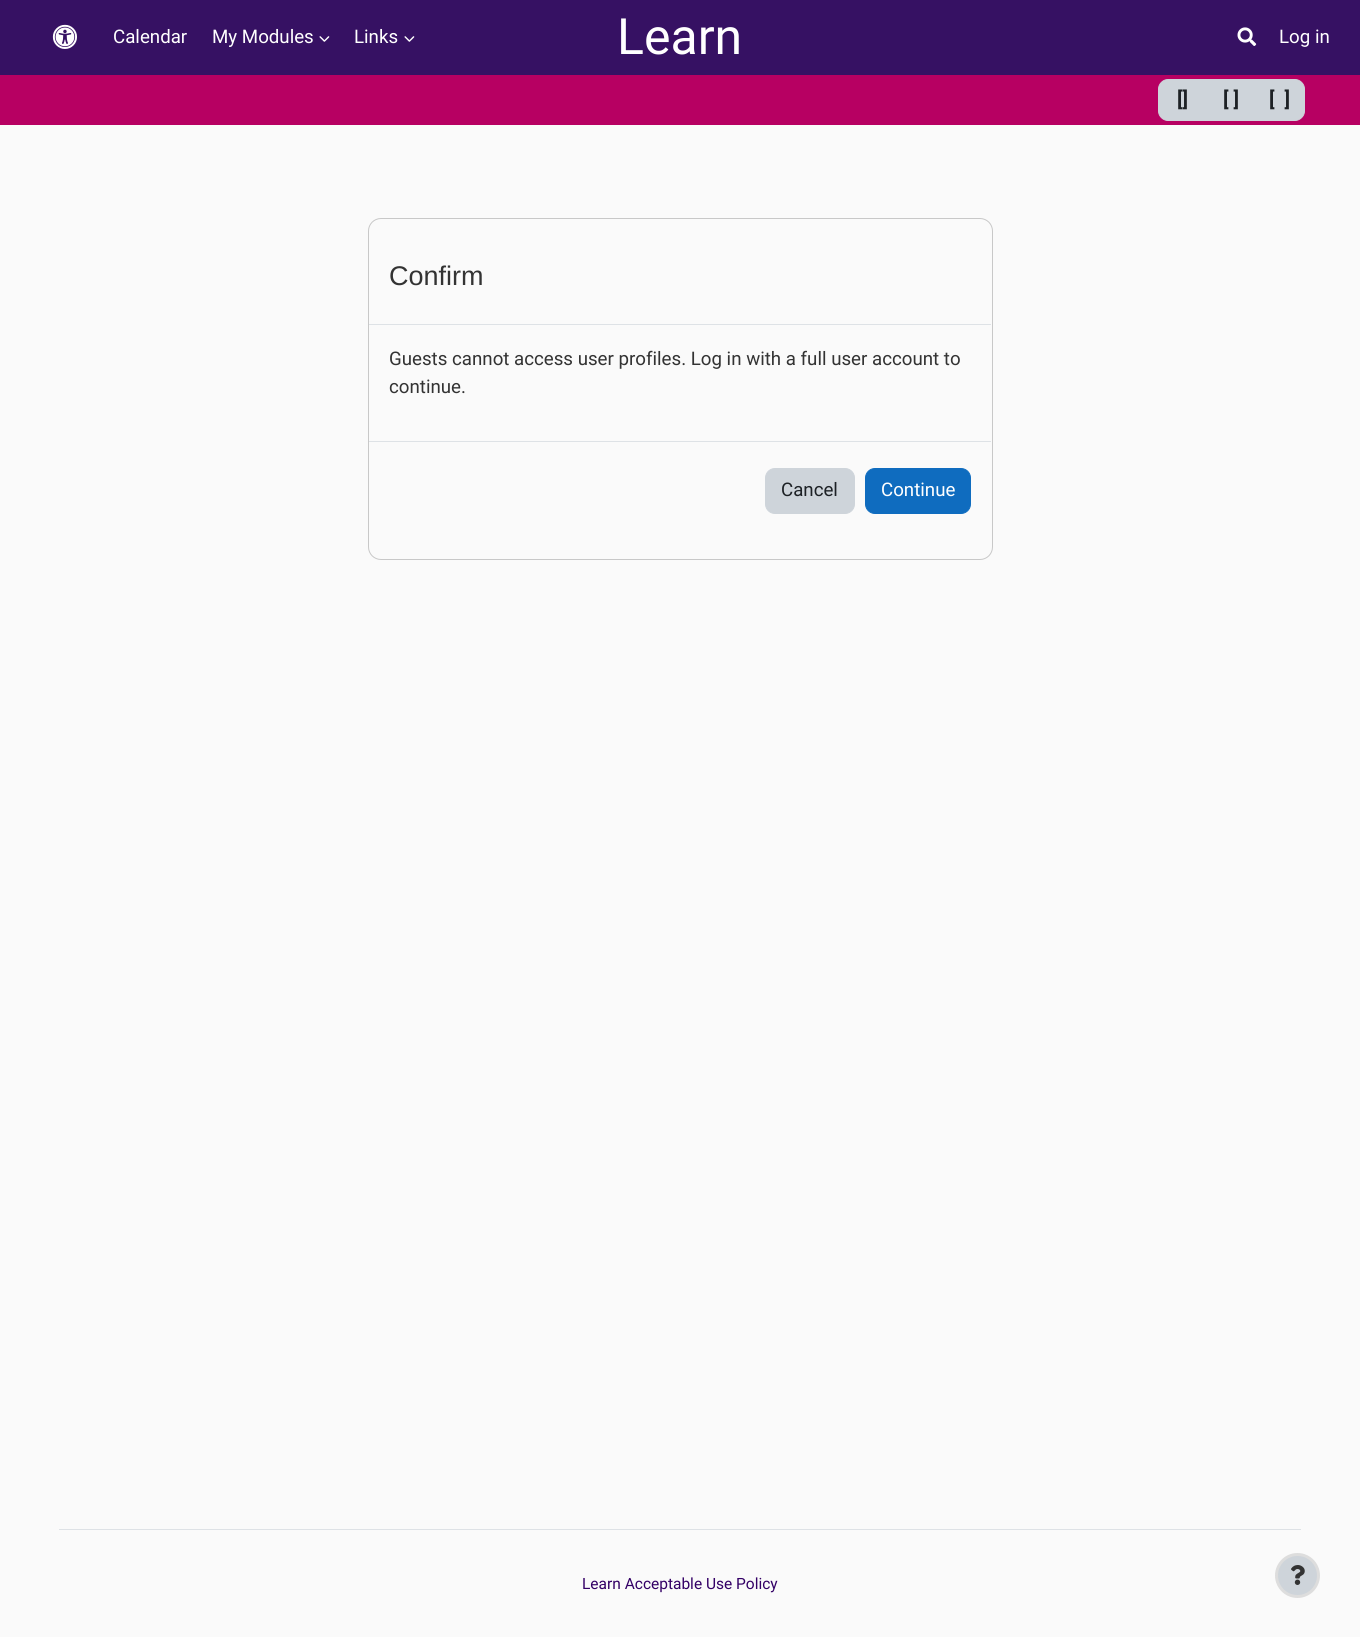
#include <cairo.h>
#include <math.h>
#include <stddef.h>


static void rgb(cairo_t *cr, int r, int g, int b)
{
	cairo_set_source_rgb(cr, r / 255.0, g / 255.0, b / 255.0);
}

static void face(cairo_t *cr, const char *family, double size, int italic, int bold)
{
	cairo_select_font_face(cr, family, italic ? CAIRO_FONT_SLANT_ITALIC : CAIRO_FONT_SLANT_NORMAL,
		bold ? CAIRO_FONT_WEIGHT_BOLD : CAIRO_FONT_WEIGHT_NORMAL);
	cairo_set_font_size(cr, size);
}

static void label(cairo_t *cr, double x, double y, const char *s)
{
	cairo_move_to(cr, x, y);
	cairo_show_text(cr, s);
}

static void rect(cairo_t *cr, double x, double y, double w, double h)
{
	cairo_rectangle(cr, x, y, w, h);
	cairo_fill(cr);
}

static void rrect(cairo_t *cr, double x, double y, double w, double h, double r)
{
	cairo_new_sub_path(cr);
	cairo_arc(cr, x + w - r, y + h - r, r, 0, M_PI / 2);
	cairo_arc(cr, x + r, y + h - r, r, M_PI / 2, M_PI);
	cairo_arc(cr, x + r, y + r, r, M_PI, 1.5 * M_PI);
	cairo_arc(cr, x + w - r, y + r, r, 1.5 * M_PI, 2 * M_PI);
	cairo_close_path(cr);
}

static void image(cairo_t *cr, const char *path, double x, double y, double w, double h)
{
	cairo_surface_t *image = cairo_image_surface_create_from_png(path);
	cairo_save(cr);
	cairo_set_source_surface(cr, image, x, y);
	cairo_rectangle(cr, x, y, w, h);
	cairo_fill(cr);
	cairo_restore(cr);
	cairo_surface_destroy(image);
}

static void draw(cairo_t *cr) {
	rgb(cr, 250, 250, 250);
	cairo_paint(cr);
	rgb(cr, 54, 17, 99);
	rect(cr, 0, 0, 1360, 75);
	image(cr, "image0.png", 52, 24, 25, 25);
	face(cr, "Roboto", 18.7, 0, 0);
	rgb(cr, 255, 255, 255);
	label(cr, 113, 43, "Calendar");
	label(cr, 212, 43, "My Modules");
	image(cr, "image1.png", 319, 36, 11, 6);
	label(cr, 354, 43, "Links");
	image(cr, "image1.png", 404, 36, 11, 6);
	face(cr, "Roboto", 50, 0, 0);
	label(cr, 617, 54, "Learn");
	image(cr, "image2.png", 1237, 27, 20, 19);
	face(cr, "Roboto", 18.7, 0, 0);
	label(cr, 1279, 43, "Log in");
	rgb(cr, 183, 0, 98);
	rect(cr, 0, 75, 1360, 50);
	rgb(cr, 206, 212, 218);
	cairo_new_path(cr);
	cairo_move_to(cr, 1168, 79.5);
	cairo_line_to(cr, 1207.5, 79.5);
	cairo_line_to(cr, 1207.5, 120.5);
	cairo_line_to(cr, 1168, 120.5);
	cairo_curve_to(cr, 1163, 120.5, 1158.5, 116, 1158.5, 111);
	cairo_line_to(cr, 1158.5, 89);
	cairo_curve_to(cr, 1158.5, 84, 1163, 79.5, 1168, 79.5);
	cairo_close_path(cr);
	cairo_fill_preserve(cr);
	cairo_set_line_width(cr, 1);
	cairo_stroke(cr);
	face(cr, "Roboto", 20, 0, 1);
	rgb(cr, 29, 33, 37);
	label(cr, 1177, 106, "[]");
	rgb(cr, 206, 212, 218);
	rect(cr, 1208, 79, 47, 42);
	rgb(cr, 29, 33, 37);
	label(cr, 1223, 106, "[ ]");
	rgb(cr, 206, 212, 218);
	cairo_new_path(cr);
	cairo_move_to(cr, 1255.5, 79.5);
	cairo_line_to(cr, 1295, 79.5);
	cairo_curve_to(cr, 1300, 79.5, 1304.5, 84, 1304.5, 89);
	cairo_line_to(cr, 1304.5, 111);
	cairo_curve_to(cr, 1304.5, 116, 1300, 120.5, 1295, 120.5);
	cairo_line_to(cr, 1255.5, 120.5);
	cairo_close_path(cr);
	cairo_fill_preserve(cr);
	cairo_stroke(cr);
	rgb(cr, 29, 33, 37);
	label(cr, 1269, 106, "[  ]");
	rrect(cr, 368.5, 218.5, 624, 341, 12.5);
	rgb(cr, 200, 200, 200);
	cairo_stroke(cr);
	rgb(cr, 222, 226, 230);
	rect(cr, 369, 324, 622, 1);
	face(cr, "Liberation Sans", 27, 0, 0);
	rgb(cr, 51, 51, 51);
	label(cr, 389, 285, "Confirm");
	face(cr, "Roboto", 18.7, 0, 0);
	label(cr, 389, 365, "Guests cannot access user profiles. Log in with a full user account to");
	label(cr, 389, 393, "continue.");
	rgb(cr, 222, 226, 230);
	rect(cr, 369, 441, 622, 1);
	rgb(cr, 206, 212, 218);
	rrect(cr, 765.5, 468.5, 89, 45, 9.5);
	cairo_fill_preserve(cr);
	cairo_stroke(cr);
	rgb(cr, 29, 33, 37);
	label(cr, 781, 496, "Cancel");
	rgb(cr, 15, 108, 191);
	rrect(cr, 865.5, 468.5, 105, 45, 9.5);
	cairo_fill_preserve(cr);
	cairo_stroke(cr);
	rgb(cr, 255, 255, 255);
	label(cr, 881, 496, "Continue");
	rgb(cr, 222, 226, 230);
	rect(cr, 59, 1529, 1242, 1);
	face(cr, "Roboto", 15.5, 0, 0);
	rgb(cr, 51, 0, 102);
	label(cr, 582, 1589, "Learn Acceptable Use Policy");
	rgb(cr, 206, 212, 218);
	cairo_new_path(cr);
	cairo_arc(cr, 1297.5, 1575.5, 21, 0, 2 * M_PI);
	cairo_fill_preserve(cr);
	rgb(cr, 221, 221, 221);
	cairo_set_line_width(cr, 3);
	cairo_stroke(cr);
	image(cr, "image3.png", 1291, 1565, 14, 20);
}

int main(void) {
	cairo_surface_t *surface = cairo_image_surface_create(CAIRO_FORMAT_RGB24, 1360, 1637);
	cairo_t *cr = cairo_create(surface);
	cairo_font_options_t *options = cairo_font_options_create();
	cairo_font_options_set_hint_metrics(options, CAIRO_HINT_METRICS_OFF);
	cairo_font_options_set_hint_style(options, CAIRO_HINT_STYLE_NONE);
	cairo_set_font_options(cr, options);
	cairo_set_miter_limit(cr, 4);
	draw(cr);
	cairo_surface_write_to_png(surface, "render.png");
	cairo_font_options_destroy(options);
	cairo_destroy(cr);
	cairo_surface_destroy(surface);
	return 0;
}
